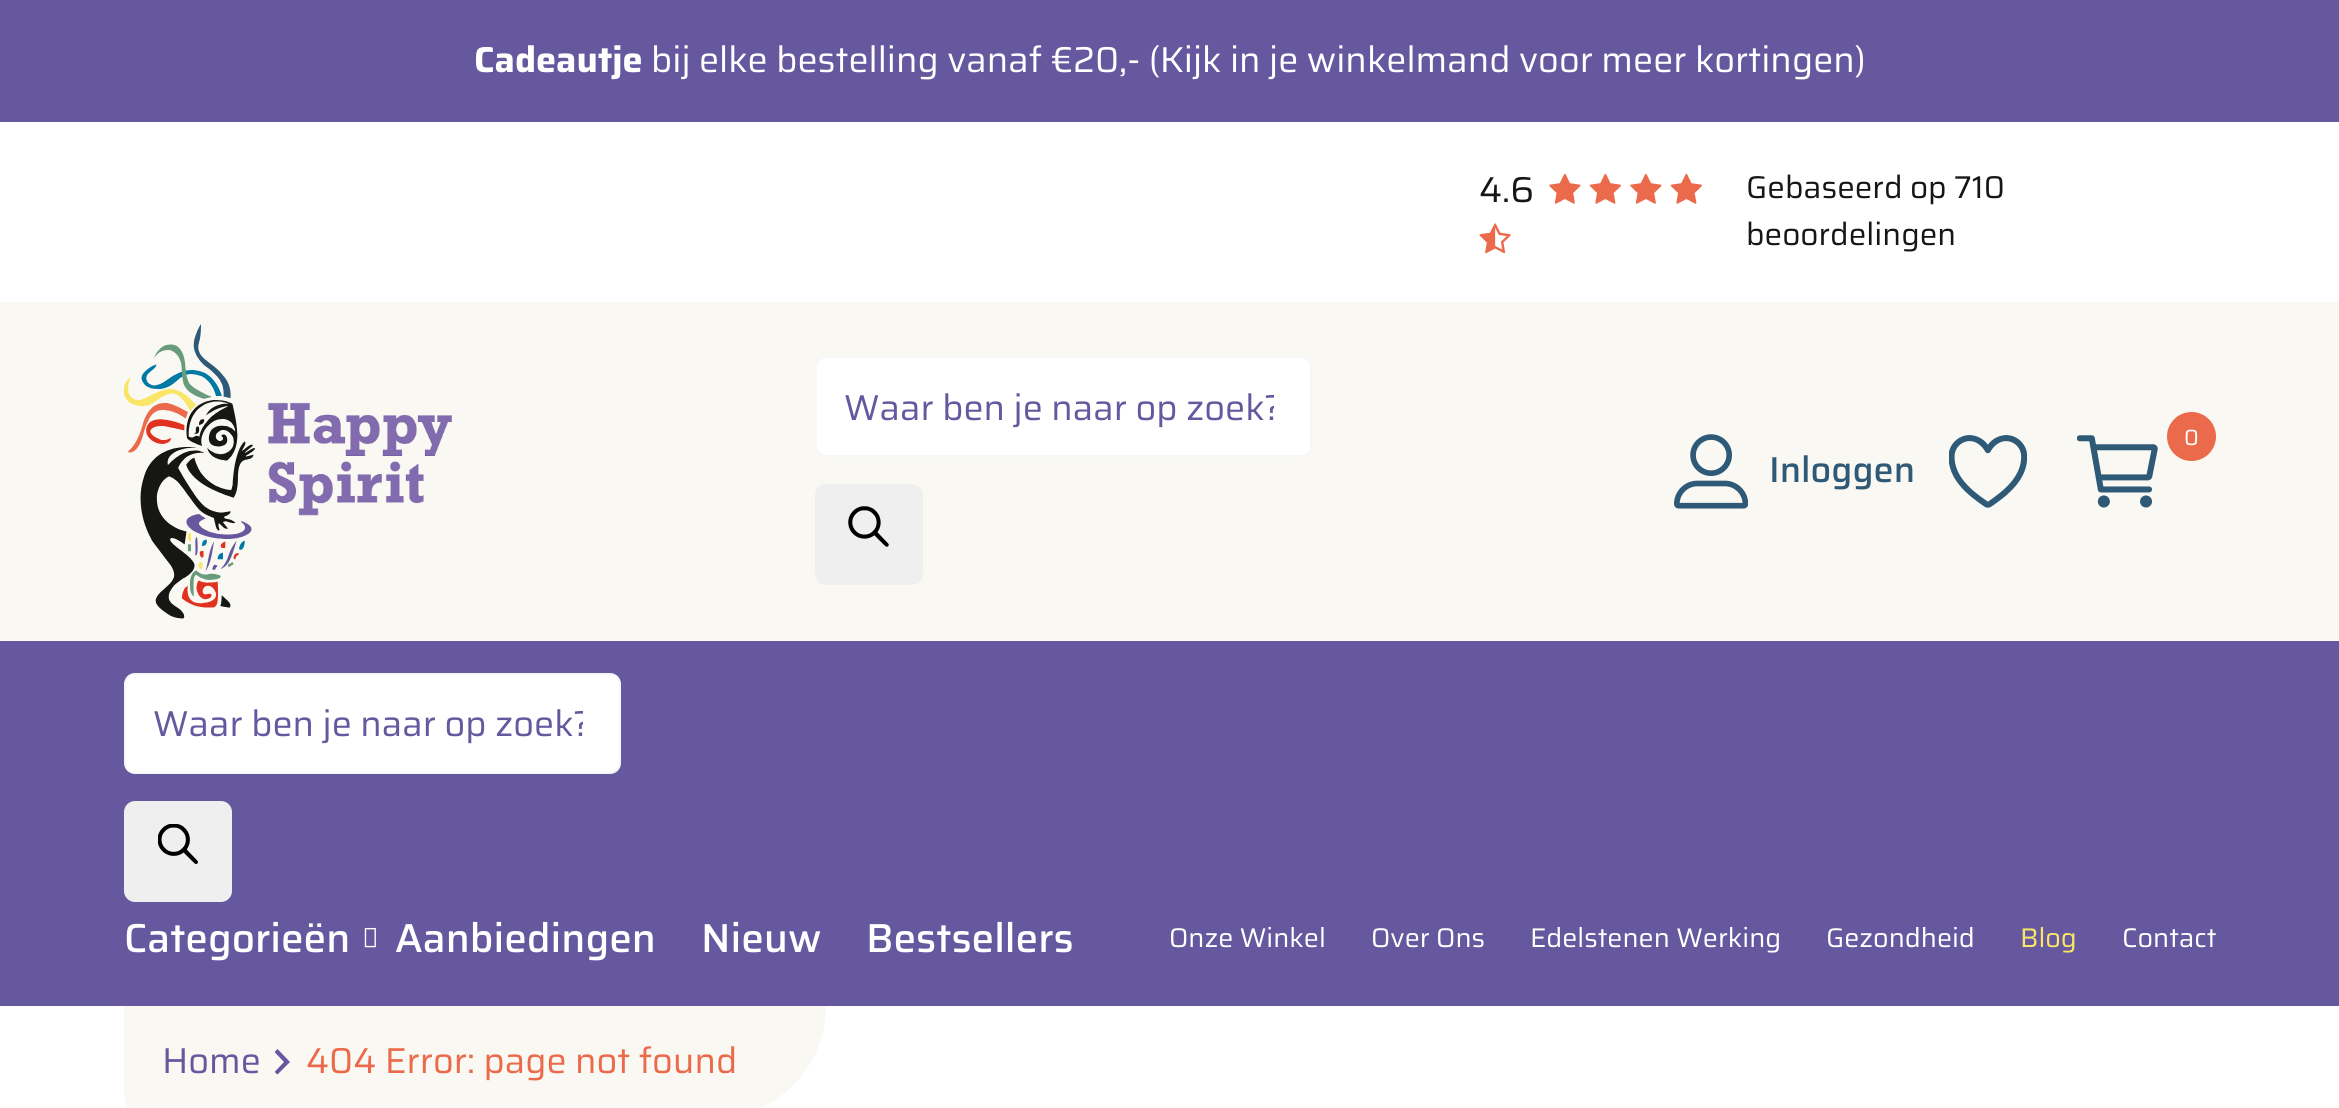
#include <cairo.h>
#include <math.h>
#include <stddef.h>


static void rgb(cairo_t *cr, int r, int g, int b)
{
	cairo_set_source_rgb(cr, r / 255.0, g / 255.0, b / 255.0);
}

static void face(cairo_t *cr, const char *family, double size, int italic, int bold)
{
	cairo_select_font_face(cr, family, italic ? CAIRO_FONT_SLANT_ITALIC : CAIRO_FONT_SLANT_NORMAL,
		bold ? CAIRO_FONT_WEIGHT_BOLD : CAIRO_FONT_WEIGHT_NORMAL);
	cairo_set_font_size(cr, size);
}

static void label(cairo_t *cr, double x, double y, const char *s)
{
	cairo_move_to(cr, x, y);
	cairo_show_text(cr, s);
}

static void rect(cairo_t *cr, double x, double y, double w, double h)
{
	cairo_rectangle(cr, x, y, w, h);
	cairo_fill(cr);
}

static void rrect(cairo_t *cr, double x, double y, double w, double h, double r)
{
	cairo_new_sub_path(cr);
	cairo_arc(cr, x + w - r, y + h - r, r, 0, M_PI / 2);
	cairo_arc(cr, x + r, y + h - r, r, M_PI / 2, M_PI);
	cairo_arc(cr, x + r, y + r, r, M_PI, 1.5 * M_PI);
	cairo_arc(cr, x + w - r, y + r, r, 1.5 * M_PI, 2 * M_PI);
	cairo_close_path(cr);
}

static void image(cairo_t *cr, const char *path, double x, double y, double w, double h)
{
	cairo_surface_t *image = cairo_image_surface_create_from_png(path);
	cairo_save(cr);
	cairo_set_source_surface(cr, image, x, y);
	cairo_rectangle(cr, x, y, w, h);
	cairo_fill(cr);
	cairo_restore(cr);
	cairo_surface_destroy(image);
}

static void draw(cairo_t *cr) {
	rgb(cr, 255, 255, 255);
	cairo_paint(cr);
	rgb(cr, 250, 248, 242);
	rect(cr, 0, 302, 2339, 339);
	rgb(cr, 101, 88, 159);
	rect(cr, 0, 0, 2339, 122);
	face(cr, "Saira", 36, 0, 1);
	rgb(cr, 255, 255, 255);
	label(cr, 474, 72, "Cadeautje");
	face(cr, "Saira", 36, 0, 0);
	label(cr, 651, 72, "bij elke bestelling vanaf €20,- (Kijk in je winkelmand voor meer kortingen)");
	image(cr, "image0.png", 1549, 173, 32, 31);
	image(cr, "image1.png", 1589, 173, 32, 31);
	image(cr, "image0.png", 1630, 173, 32, 31);
	image(cr, "image1.png", 1670, 173, 32, 31);
	image(cr, "image2.png", 1479, 223, 32, 31);
	rgb(cr, 22, 22, 21);
	label(cr, 1479, 202, "4.6");
	face(cr, "Saira", 31.5, 0, 0);
	label(cr, 1746, 198, "Gebaseerd op 710");
	label(cr, 1746, 245, "beoordelingen");
	image(cr, "image3.png", 124, 324, 328, 295);
	rgb(cr, 255, 255, 255);
	rrect(cr, 816, 357, 495, 99, 10);
	cairo_fill_preserve(cr);
	rgb(cr, 245, 248, 248);
	cairo_stroke(cr);
	cairo_save(cr);
	cairo_rectangle(cr, 844, 378, 430, 56);
	cairo_clip(cr);
	face(cr, "Saira", 36, 0, 0);
	rgb(cr, 101, 88, 159);
	label(cr, 844, 420, "Waar ben je naar op zoek?");
	cairo_restore(cr);
	rgb(cr, 239, 239, 239);
	rrect(cr, 815, 484, 108, 101, 11);
	cairo_fill(cr);
	image(cr, "image4.png", 848, 506, 41, 41);
	image(cr, "image5.png", 2077, 435, 81, 73);
	rgb(cr, 235, 106, 75);
	cairo_arc(cr, 2191.5, 436.5, 24.5, 0, 2 * M_PI);
	cairo_fill(cr);
	face(cr, "Saira", 22, 0, 0);
	rgb(cr, 255, 255, 255);
	label(cr, 2184, 445, "0");
	image(cr, "image6.png", 1674, 434, 74, 75);
	face(cr, "Saira Medium", 36, 0, 0);
	rgb(cr, 46, 89, 119);
	label(cr, 1769, 482, "Inloggen");
	image(cr, "image7.png", 1949, 435, 78, 73);
	rgb(cr, 101, 88, 159);
	rect(cr, 0, 641, 2339, 365);
	rgb(cr, 255, 255, 255);
	rrect(cr, 125, 674, 495, 99, 10);
	cairo_fill_preserve(cr);
	rgb(cr, 245, 248, 248);
	cairo_stroke(cr);
	cairo_save(cr);
	cairo_rectangle(cr, 153, 695, 430, 57);
	cairo_clip(cr);
	face(cr, "Saira", 36, 0, 0);
	rgb(cr, 101, 88, 159);
	label(cr, 153, 736, "Waar ben je naar op zoek?");
	cairo_restore(cr);
	rgb(cr, 239, 239, 239);
	rrect(cr, 124, 801, 108, 101, 11);
	cairo_fill(cr);
	image(cr, "image8.png", 158, 824, 40, 40);
	face(cr, "Saira Medium", 40.5, 0, 0);
	rgb(cr, 255, 255, 255);
	label(cr, 124, 952, "Categorieën");
	image(cr, "image9.png", 364, 927, 12, 21);
	label(cr, 395, 952, "Aanbiedingen");
	label(cr, 701, 952, "Nieuw");
	label(cr, 866, 952, "Bestsellers");
	face(cr, "Saira", 27, 0, 0);
	label(cr, 1169, 947, "Onze Winkel");
	label(cr, 1371, 947, "Over Ons");
	label(cr, 1530, 947, "Edelstenen Werking");
	label(cr, 1826, 947, "Gezondheid");
	rgb(cr, 249, 230, 102);
	label(cr, 2020, 947, "Blog");
	rgb(cr, 255, 255, 255);
	label(cr, 2122, 947, "Contact");
	rgb(cr, 250, 248, 242);
	cairo_new_path(cr);
	cairo_move_to(cr, 124, 1006);
	cairo_line_to(cr, 826, 1006);
	cairo_curve_to(cr, 826, 1068, 776, 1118, 714, 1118);
	cairo_line_to(cr, 147, 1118);
	cairo_curve_to(cr, 134, 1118, 124, 1108, 124, 1095);
	cairo_close_path(cr);
	cairo_fill(cr);
	face(cr, "Saira", 36, 0, 0);
	rgb(cr, 101, 88, 159);
	label(cr, 162, 1073, "Home");
	cairo_save(cr);
	cairo_rectangle(cr, 275, 1049, 15, 27);
	cairo_clip(cr);
	cairo_new_path(cr);
	cairo_move_to(cr, 277.5, 1049);
	cairo_line_to(cr, 274.5, 1052);
	cairo_line_to(cr, 284, 1062);
	cairo_line_to(cr, 274.5, 1072);
	cairo_line_to(cr, 277.5, 1074.5);
	cairo_line_to(cr, 290, 1062);
	cairo_close_path(cr);
	cairo_fill(cr);
	cairo_restore(cr);
	rgb(cr, 235, 106, 75);
	label(cr, 306, 1073, "404 Error: page not found");
}

int main(void) {
	cairo_surface_t *surface = cairo_image_surface_create(CAIRO_FORMAT_RGB24, 2339, 1108);
	cairo_t *cr = cairo_create(surface);
	cairo_font_options_t *options = cairo_font_options_create();
	cairo_font_options_set_hint_metrics(options, CAIRO_HINT_METRICS_OFF);
	cairo_font_options_set_hint_style(options, CAIRO_HINT_STYLE_NONE);
	cairo_set_font_options(cr, options);
	cairo_set_miter_limit(cr, 4);
	draw(cr);
	cairo_surface_write_to_png(surface, "render.png");
	cairo_font_options_destroy(options);
	cairo_destroy(cr);
	cairo_surface_destroy(surface);
	return 0;
}
